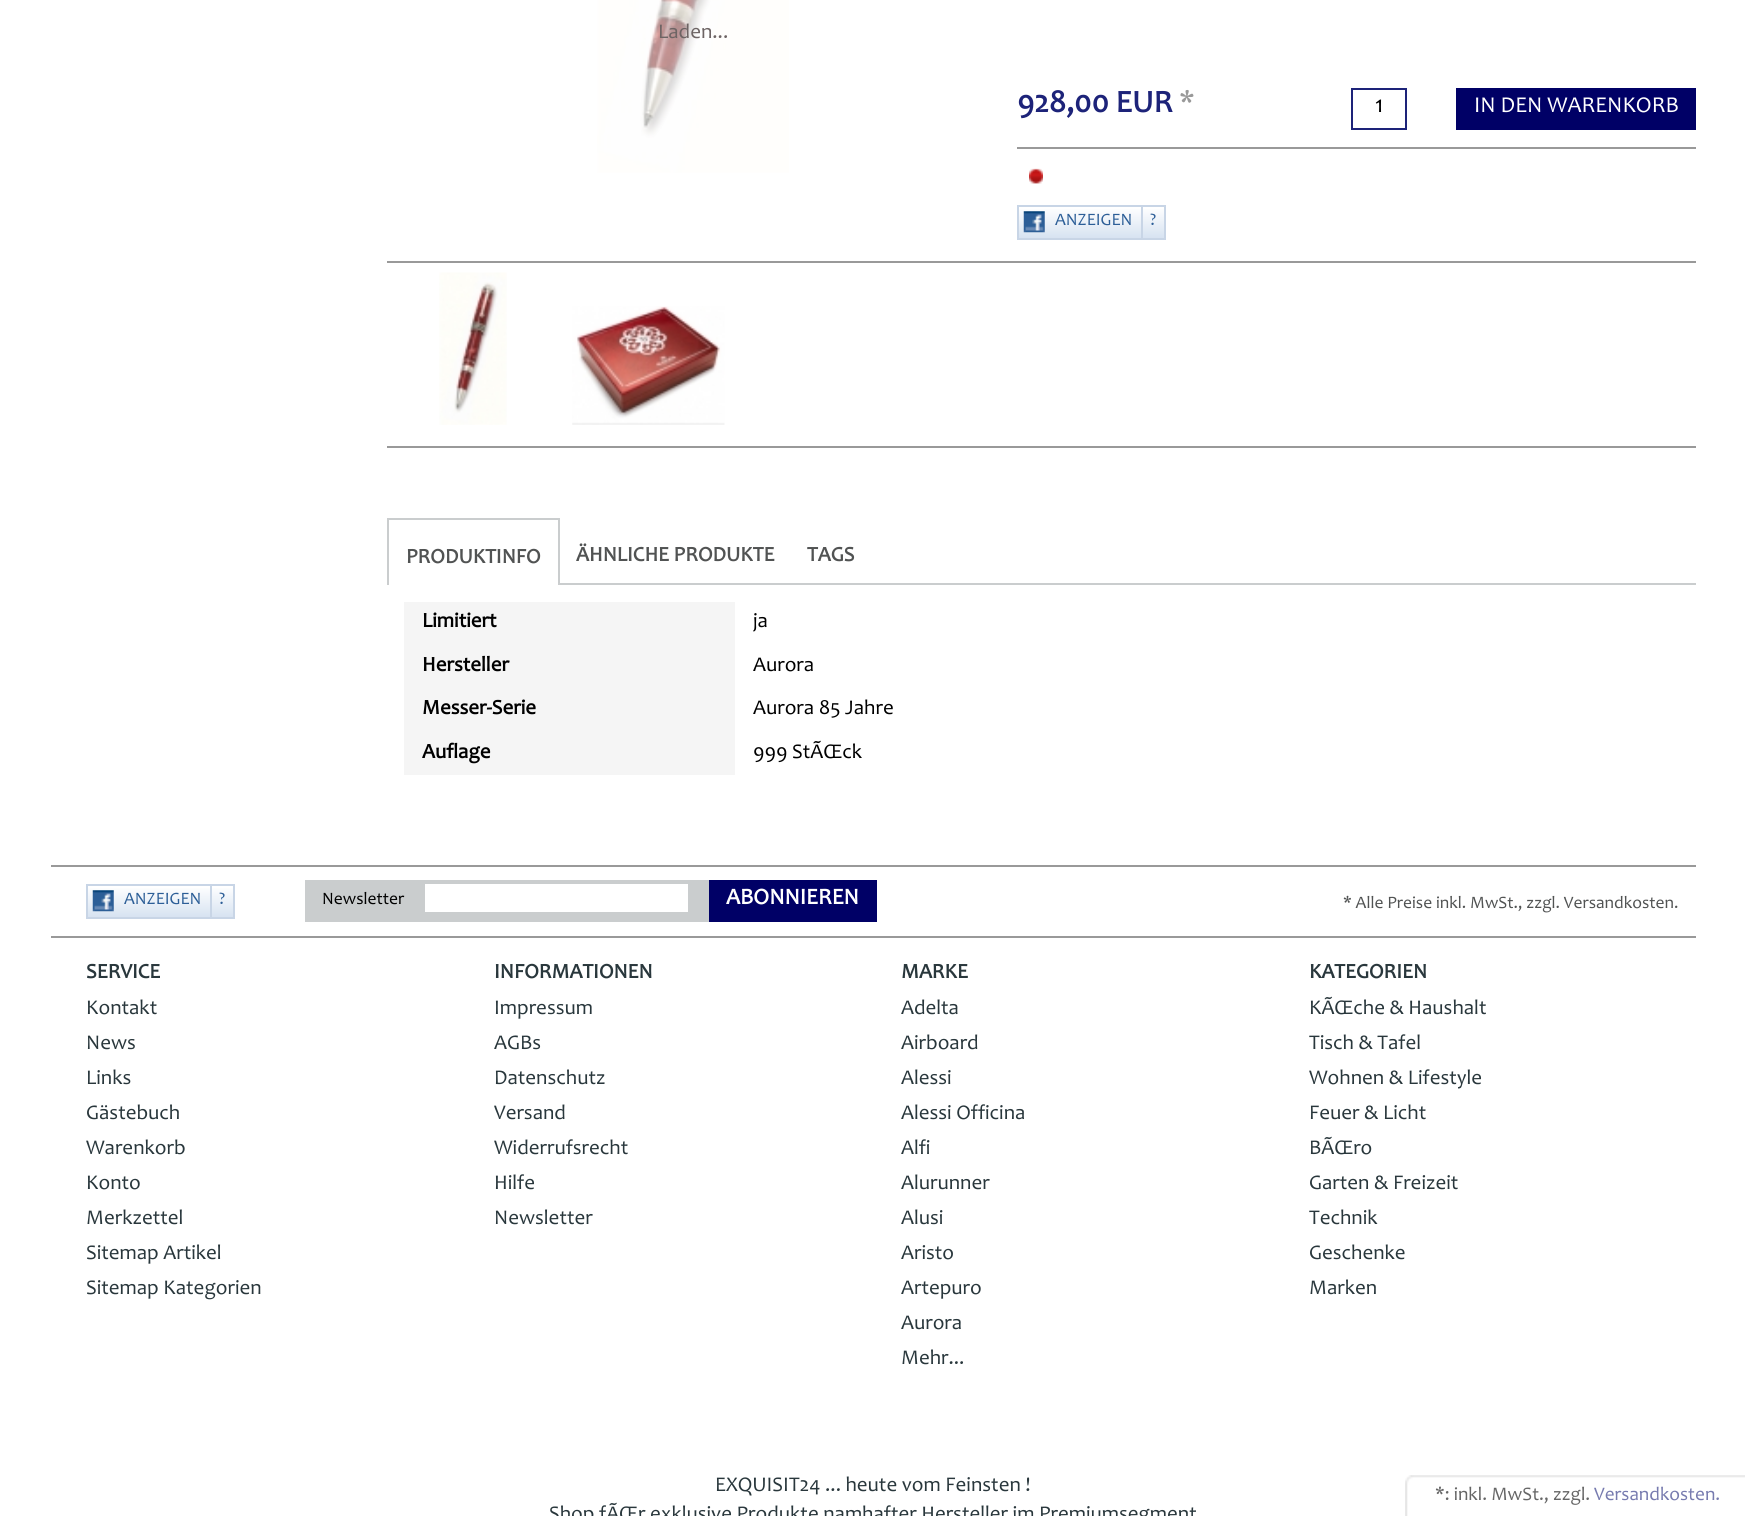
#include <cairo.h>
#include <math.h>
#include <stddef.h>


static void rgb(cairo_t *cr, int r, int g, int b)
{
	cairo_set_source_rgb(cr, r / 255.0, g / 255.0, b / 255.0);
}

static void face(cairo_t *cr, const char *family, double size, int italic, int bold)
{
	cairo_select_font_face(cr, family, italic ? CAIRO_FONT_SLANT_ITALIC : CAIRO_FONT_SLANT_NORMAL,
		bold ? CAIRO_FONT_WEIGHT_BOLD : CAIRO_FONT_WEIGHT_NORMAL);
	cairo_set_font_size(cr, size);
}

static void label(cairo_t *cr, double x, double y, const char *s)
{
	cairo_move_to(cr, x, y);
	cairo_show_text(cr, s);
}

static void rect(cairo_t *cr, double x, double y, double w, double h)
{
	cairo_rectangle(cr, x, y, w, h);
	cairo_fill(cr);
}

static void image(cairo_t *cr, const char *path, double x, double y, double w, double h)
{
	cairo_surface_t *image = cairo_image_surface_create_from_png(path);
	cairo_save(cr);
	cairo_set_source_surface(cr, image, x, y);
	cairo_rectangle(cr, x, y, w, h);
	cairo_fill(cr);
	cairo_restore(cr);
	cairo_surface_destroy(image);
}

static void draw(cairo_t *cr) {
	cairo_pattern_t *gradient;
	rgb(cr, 255, 255, 255);
	cairo_paint(cr);
	rgb(cr, 153, 153, 153);
	rect(cr, 387, 261, 1309, 2);
	image(cr, "image0.png", 597, 0, 192, 173);
	face(cr, "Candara", 21, 0, 0);
	rgb(cr, 109, 100, 100);
	label(cr, 658, 38, "Laden...");
	face(cr, "Candara", 31.5, 0, 1);
	rgb(cr, 29, 35, 121);
	label(cr, 1017, 112, "928,00 EUR");
	face(cr, "Candara", 31.5, 0, 0);
	rgb(cr, 153, 153, 153);
	label(cr, 1179, 112, "*");
	cairo_rectangle(cr, 1352, 89, 54, 40);
	rgb(cr, 29, 35, 121);
	cairo_stroke(cr);
	face(cr, "Candara", 24, 0, 0);
	rgb(cr, 0, 0, 0);
	label(cr, 1375, 112, "1");
	rgb(cr, 0, 0, 102);
	rect(cr, 1456, 88, 240, 42);
	face(cr, "Candara", 22.75, 0, 0);
	rgb(cr, 255, 255, 255);
	label(cr, 1474, 112, "IN DEN WARENKORB");
	rgb(cr, 153, 153, 153);
	rect(cr, 1017, 147, 679, 2);
	image(cr, "image1.png", 1029, 168, 14, 16);
	gradient = cairo_pattern_create_linear(1091, 207, 1091, 238);
	cairo_pattern_add_color_stop_rgba(gradient, 0, 1, 1, 1, 1);
	cairo_pattern_add_color_stop_rgba(gradient, 1, 0.843, 0.89, 0.945, 1);
	cairo_set_source(cr, gradient);
	cairo_pattern_destroy(gradient);
	rect(cr, 1019, 209, 145, 29);
	cairo_rectangle(cr, 1018, 206, 147, 33);
	rgb(cr, 200, 213, 230);
	cairo_stroke(cr);
	image(cr, "image2.png", 1023, 211, 22, 22);
	face(cr, "Candara", 17.5, 0, 0);
	rgb(cr, 44, 94, 151);
	label(cr, 1055, 225, "ANZEIGEN");
	rgb(cr, 200, 213, 230);
	rect(cr, 1141, 207, 2, 31);
	rgb(cr, 44, 94, 151);
	label(cr, 1150, 225, "?");
	rgb(cr, 153, 153, 153);
	rect(cr, 387, 446, 1309, 2);
	image(cr, "image3.png", 439, 272, 68, 153);
	image(cr, "image4.png", 572, 306, 153, 119);
	rgb(cr, 202, 205, 206);
	rect(cr, 387, 518, 173, 2);
	rect(cr, 558, 518, 2, 67);
	rect(cr, 387, 518, 2, 67);
	face(cr, "Candara", 21, 0, 1);
	rgb(cr, 81, 83, 83);
	label(cr, 406, 563, "PRODUKTINFO");
	label(cr, 576, 561, "ÄHNLICHE PRODUKTE");
	label(cr, 807, 561, "TAGS");
	rgb(cr, 202, 205, 206);
	rect(cr, 560, 583, 1136, 2);
	rgb(cr, 245, 245, 245);
	rect(cr, 404, 602, 331, 173);
	rgb(cr, 0, 0, 0);
	label(cr, 422, 627, "Limitiert");
	face(cr, "Candara", 21, 0, 0);
	label(cr, 753, 627, "ja");
	face(cr, "Candara", 21, 0, 1);
	label(cr, 422, 671, "Hersteller");
	face(cr, "Candara", 21, 0, 0);
	label(cr, 753, 671, "Aurora");
	face(cr, "Candara", 21, 0, 1);
	label(cr, 422, 714, "Messer-Serie");
	face(cr, "Candara", 21, 0, 0);
	label(cr, 753, 714, "Aurora 85 Jahre");
	face(cr, "Candara", 21, 0, 1);
	label(cr, 422, 758, "Auflage");
	face(cr, "Candara", 21, 0, 0);
	label(cr, 753, 758, "999 StÃŒck");
	rgb(cr, 153, 153, 153);
	rect(cr, 51, 865, 1645, 2);
	rect(cr, 51, 936, 1645, 2);
	gradient = cairo_pattern_create_linear(160, 886, 160, 917);
	cairo_pattern_add_color_stop_rgba(gradient, 0, 1, 1, 1, 1);
	cairo_pattern_add_color_stop_rgba(gradient, 1, 0.843, 0.89, 0.945, 1);
	cairo_set_source(cr, gradient);
	cairo_pattern_destroy(gradient);
	rect(cr, 88, 888, 145, 29);
	cairo_rectangle(cr, 87, 885, 147, 33);
	rgb(cr, 200, 213, 230);
	cairo_stroke(cr);
	image(cr, "image5.png", 92, 890, 22, 22);
	face(cr, "Candara", 17.5, 0, 0);
	rgb(cr, 44, 94, 151);
	label(cr, 124, 904, "ANZEIGEN");
	rgb(cr, 200, 213, 230);
	rect(cr, 210, 886, 2, 31);
	rgb(cr, 44, 94, 151);
	label(cr, 219, 904, "?");
	rgb(cr, 202, 205, 206);
	rect(cr, 305, 880, 404, 42);
	rgb(cr, 0, 0, 0);
	label(cr, 322, 904, "Newsletter");
	rgb(cr, 255, 255, 255);
	rect(cr, 425, 884, 263, 28);
	rgb(cr, 0, 0, 102);
	rect(cr, 709, 880, 168, 42);
	face(cr, "Candara", 22.75, 0, 1);
	rgb(cr, 255, 255, 255);
	label(cr, 726, 904, "ABONNIEREN");
	face(cr, "Candara", 17.5, 0, 0);
	rgb(cr, 81, 83, 83);
	label(cr, 1343, 908, "* Alle Preise inkl. MwSt., zzgl. Versandkosten.");
	face(cr, "Candara", 21, 0, 1);
	rgb(cr, 41, 55, 60);
	label(cr, 86, 978, "SERVICE");
	face(cr, "Candara", 21, 0, 0);
	label(cr, 86, 1014, "Kontakt");
	label(cr, 86, 1049, "News");
	label(cr, 86, 1084, "Links");
	label(cr, 86, 1119, "Gästebuch");
	label(cr, 86, 1154, "Warenkorb");
	label(cr, 86, 1189, "Konto");
	label(cr, 86, 1224, "Merkzettel");
	label(cr, 86, 1259, "Sitemap Artikel");
	label(cr, 86, 1294, "Sitemap Kategorien");
	face(cr, "Candara", 21, 0, 1);
	label(cr, 494, 978, "INFORMATIONEN");
	face(cr, "Candara", 21, 0, 0);
	label(cr, 494, 1014, "Impressum");
	label(cr, 494, 1049, "AGBs");
	label(cr, 494, 1084, "Datenschutz");
	label(cr, 494, 1119, "Versand");
	label(cr, 494, 1154, "Widerrufsrecht");
	label(cr, 494, 1189, "Hilfe");
	label(cr, 494, 1224, "Newsletter");
	face(cr, "Candara", 21, 0, 1);
	label(cr, 901, 978, "MARKE");
	face(cr, "Candara", 21, 0, 0);
	label(cr, 901, 1014, "Adelta");
	label(cr, 901, 1049, "Airboard");
	label(cr, 901, 1084, "Alessi");
	label(cr, 901, 1119, "Alessi Officina");
	label(cr, 901, 1154, "Alfi");
	label(cr, 901, 1189, "Alurunner");
	label(cr, 901, 1224, "Alusi");
	label(cr, 901, 1259, "Aristo");
	label(cr, 901, 1294, "Artepuro");
	label(cr, 901, 1329, "Aurora");
	label(cr, 901, 1364, "Mehr...");
	face(cr, "Candara", 21, 0, 1);
	label(cr, 1309, 978, "KATEGORIEN");
	face(cr, "Candara", 21, 0, 0);
	label(cr, 1309, 1014, "KÃŒche & Haushalt");
	label(cr, 1309, 1049, "Tisch & Tafel");
	label(cr, 1309, 1084, "Wohnen & Lifestyle");
	label(cr, 1309, 1119, "Feuer & Licht");
	label(cr, 1309, 1154, "BÃŒro");
	label(cr, 1309, 1189, "Garten & Freizeit");
	label(cr, 1309, 1224, "Technik");
	label(cr, 1309, 1259, "Geschenke");
	label(cr, 1309, 1294, "Marken");
	label(cr, 715, 1491, "EXQUISIT24 ... heute vom Feinsten !");
	label(cr, 549, 1520, "Shop fÃŒr exklusive Produkte namhafter Hersteller im Premiumsegment");
	image(cr, "image6.png", 1405, 1475, 340, 41);
	face(cr, "Candara", 19.25, 0, 0);
	rgb(cr, 102, 102, 102);
	label(cr, 1435, 1500, "*: inkl. MwSt., zzgl.");
	rgb(cr, 119, 123, 175);
	label(cr, 1594, 1500, "Versandkosten.");
}

int main(void) {
	cairo_surface_t *surface = cairo_image_surface_create(CAIRO_FORMAT_RGB24, 1745, 1516);
	cairo_t *cr = cairo_create(surface);
	cairo_font_options_t *options = cairo_font_options_create();
	cairo_font_options_set_hint_metrics(options, CAIRO_HINT_METRICS_OFF);
	cairo_font_options_set_hint_style(options, CAIRO_HINT_STYLE_NONE);
	cairo_set_font_options(cr, options);
	cairo_set_miter_limit(cr, 4);
	draw(cr);
	cairo_surface_write_to_png(surface, "render.png");
	cairo_font_options_destroy(options);
	cairo_destroy(cr);
	cairo_surface_destroy(surface);
	return 0;
}
